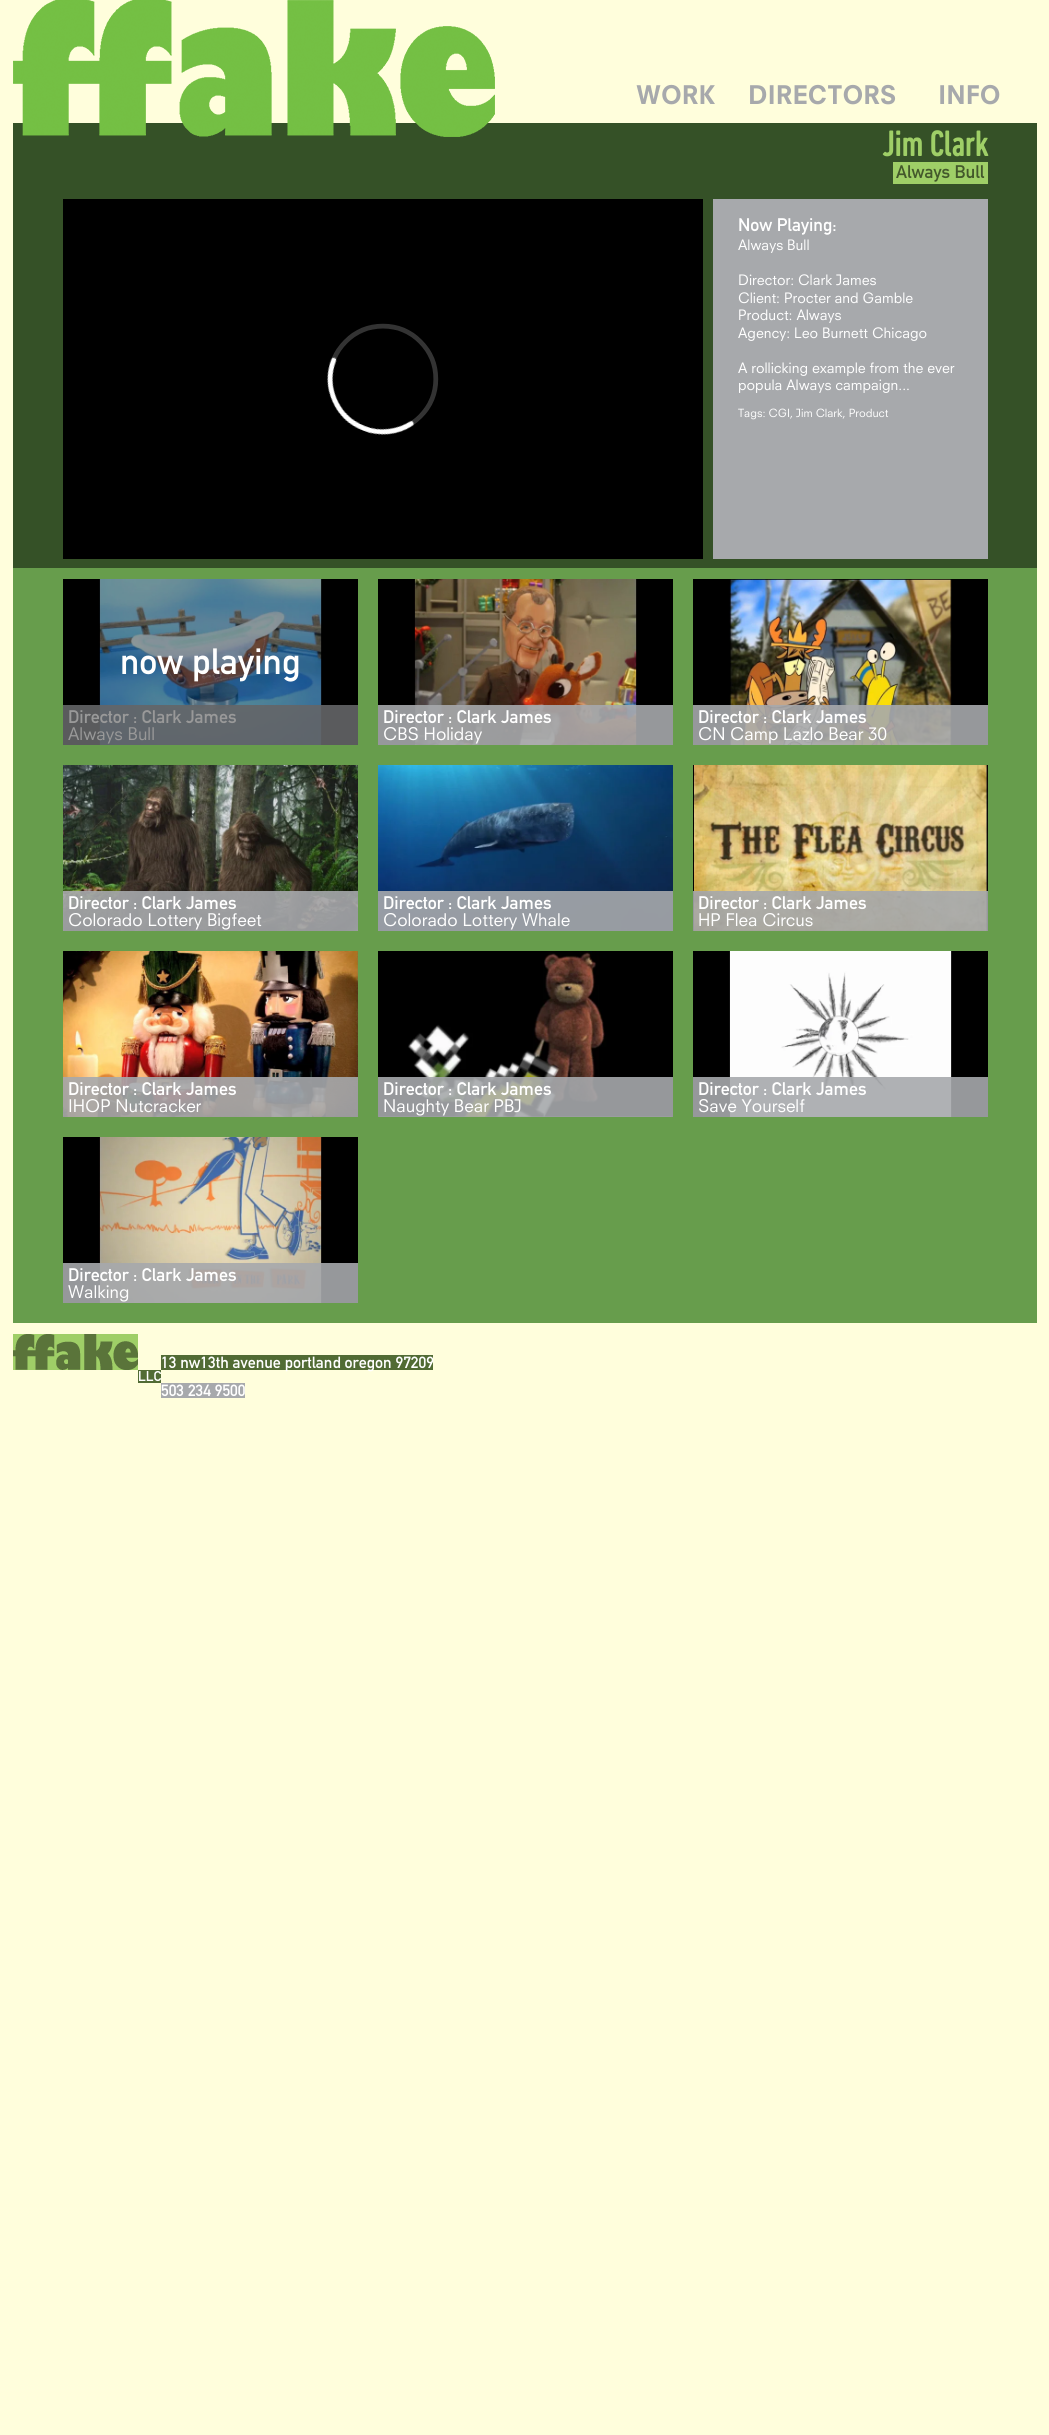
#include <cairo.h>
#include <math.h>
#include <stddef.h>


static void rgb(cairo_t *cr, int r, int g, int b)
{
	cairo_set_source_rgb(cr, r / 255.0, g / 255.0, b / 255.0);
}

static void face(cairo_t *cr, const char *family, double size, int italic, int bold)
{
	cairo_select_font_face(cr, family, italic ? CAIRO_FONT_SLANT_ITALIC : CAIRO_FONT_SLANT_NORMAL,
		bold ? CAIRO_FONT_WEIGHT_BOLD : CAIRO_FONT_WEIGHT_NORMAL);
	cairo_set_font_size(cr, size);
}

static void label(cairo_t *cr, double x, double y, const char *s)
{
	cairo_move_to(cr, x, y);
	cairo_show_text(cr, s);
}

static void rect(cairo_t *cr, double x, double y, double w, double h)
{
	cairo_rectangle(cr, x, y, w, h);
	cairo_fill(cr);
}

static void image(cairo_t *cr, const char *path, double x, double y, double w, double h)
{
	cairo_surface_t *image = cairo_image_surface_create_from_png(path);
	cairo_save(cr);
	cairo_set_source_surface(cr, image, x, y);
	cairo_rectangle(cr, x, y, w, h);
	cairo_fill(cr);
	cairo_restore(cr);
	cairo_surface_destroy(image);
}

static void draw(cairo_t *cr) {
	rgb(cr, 255, 254, 220);
	cairo_paint(cr);
	rgb(cr, 53, 81, 39);
	rect(cr, 13, 123, 1024, 445);
	image(cr, "image0.png", 13, 0, 482, 137);
	face(cr, "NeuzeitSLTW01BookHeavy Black", 25, 0, 0);
	rgb(cr, 167, 169, 172);
	label(cr, 636, 104, "WORK");
	label(cr, 748, 104, "DIRECTORS");
	label(cr, 938, 104, "INFO");
	rgb(cr, 103, 157, 76);
	rect(cr, 13, 568, 1024, 755);
	face(cr, "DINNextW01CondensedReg", 36, 0, 1);
	rgb(cr, 159, 207, 103);
	label(cr, 882, 156, "Jim Clark");
	rect(cr, 893, 162, 95, 22);
	face(cr, "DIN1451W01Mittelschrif", 18, 0, 0);
	rgb(cr, 67, 88, 43);
	label(cr, 896, 178, "Always Bull");
	image(cr, "image1.png", 63, 199, 640, 360);
	rgb(cr, 167, 169, 172);
	rect(cr, 713, 199, 275, 360);
	rgb(cr, 255, 255, 255);
	label(cr, 738, 231, "Now Playing:");
	face(cr, "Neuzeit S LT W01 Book", 14, 0, 0);
	label(cr, 738, 250, "Always Bull");
	label(cr, 738, 285, "Director: Clark James");
	label(cr, 738, 303, "Client: Procter and Gamble");
	label(cr, 738, 320, "Product: Always");
	label(cr, 738, 338, "Agency: Leo Burnett Chicago");
	label(cr, 738, 373, "A rollicking example from the ever");
	label(cr, 738, 390, "popula Always campaign...");
	face(cr, "Neuzeit S LT W01 Book", 11, 0, 0);
	label(cr, 738, 417, "Tags: CGI, Jim Clark, Product");
	rgb(cr, 0, 0, 0);
	rect(cr, 63, 579, 295, 166);
	image(cr, "image2.png", 99, 579, 223, 166);
	face(cr, "DIN1451W01Mittelschrif", 36, 0, 0);
	rgb(cr, 255, 255, 255);
	label(cr, 120, 674, "now playing");
	cairo_set_source_rgba(cr, 0.392, 0.396, 0.404, 0.9);
	rect(cr, 63, 705, 295, 20);
	face(cr, "DIN1451W01Mittelschrif", 18, 0, 0);
	rgb(cr, 153, 153, 153);
	label(cr, 68, 723, "Director : Clark James");
	cairo_set_source_rgba(cr, 0.392, 0.396, 0.404, 0.9);
	rect(cr, 63, 725, 295, 20);
	face(cr, "Neuzeit S LT W01 Book", 17, 0, 0);
	rgb(cr, 153, 153, 153);
	label(cr, 68, 740, "Always Bull");
	rgb(cr, 0, 0, 0);
	rect(cr, 378, 579, 295, 166);
	image(cr, "image3.png", 414, 579, 223, 166);
	cairo_set_source_rgba(cr, 0.655, 0.663, 0.675, 0.9);
	rect(cr, 378, 705, 295, 20);
	face(cr, "DIN1451W01Mittelschrif", 18, 0, 0);
	rgb(cr, 255, 255, 255);
	label(cr, 383, 723, "Director : Clark James");
	cairo_set_source_rgba(cr, 0.655, 0.663, 0.675, 0.9);
	rect(cr, 378, 725, 295, 20);
	face(cr, "Neuzeit S LT W01 Book", 17, 0, 0);
	rgb(cr, 255, 255, 255);
	label(cr, 383, 740, "CBS Holiday");
	rgb(cr, 0, 0, 0);
	rect(cr, 693, 579, 295, 166);
	image(cr, "image4.png", 729, 579, 223, 166);
	cairo_set_source_rgba(cr, 0.655, 0.663, 0.675, 0.9);
	rect(cr, 693, 705, 295, 20);
	face(cr, "DIN1451W01Mittelschrif", 18, 0, 0);
	rgb(cr, 255, 255, 255);
	label(cr, 698, 723, "Director : Clark James");
	cairo_set_source_rgba(cr, 0.655, 0.663, 0.675, 0.9);
	rect(cr, 693, 725, 295, 20);
	face(cr, "Neuzeit S LT W01 Book", 17, 0, 0);
	rgb(cr, 255, 255, 255);
	label(cr, 698, 740, "CN Camp Lazlo Bear 30");
	image(cr, "image5.png", 63, 765, 295, 166);
	cairo_set_source_rgba(cr, 0.655, 0.663, 0.675, 0.9);
	rect(cr, 63, 891, 295, 20);
	face(cr, "DIN1451W01Mittelschrif", 18, 0, 0);
	rgb(cr, 255, 255, 255);
	label(cr, 68, 909, "Director : Clark James");
	cairo_set_source_rgba(cr, 0.655, 0.663, 0.675, 0.9);
	rect(cr, 63, 911, 295, 20);
	face(cr, "Neuzeit S LT W01 Book", 17, 0, 0);
	rgb(cr, 255, 255, 255);
	label(cr, 68, 926, "Colorado Lottery Bigfeet");
	image(cr, "image6.png", 378, 765, 295, 166);
	cairo_set_source_rgba(cr, 0.655, 0.663, 0.675, 0.9);
	rect(cr, 378, 891, 295, 20);
	face(cr, "DIN1451W01Mittelschrif", 18, 0, 0);
	rgb(cr, 255, 255, 255);
	label(cr, 383, 909, "Director : Clark James");
	cairo_set_source_rgba(cr, 0.655, 0.663, 0.675, 0.9);
	rect(cr, 378, 911, 295, 20);
	face(cr, "Neuzeit S LT W01 Book", 17, 0, 0);
	rgb(cr, 255, 255, 255);
	label(cr, 383, 926, "Colorado Lottery Whale");
	image(cr, "image7.png", 693, 765, 295, 166);
	cairo_set_source_rgba(cr, 0.655, 0.663, 0.675, 0.9);
	rect(cr, 693, 891, 295, 20);
	face(cr, "DIN1451W01Mittelschrif", 18, 0, 0);
	rgb(cr, 255, 255, 255);
	label(cr, 698, 909, "Director : Clark James");
	cairo_set_source_rgba(cr, 0.655, 0.663, 0.675, 0.9);
	rect(cr, 693, 911, 295, 20);
	face(cr, "Neuzeit S LT W01 Book", 17, 0, 0);
	rgb(cr, 255, 255, 255);
	label(cr, 698, 926, "HP Flea Circus");
	image(cr, "image8.png", 63, 951, 295, 166);
	cairo_set_source_rgba(cr, 0.655, 0.663, 0.675, 0.9);
	rect(cr, 63, 1077, 295, 20);
	face(cr, "DIN1451W01Mittelschrif", 18, 0, 0);
	rgb(cr, 255, 255, 255);
	label(cr, 68, 1095, "Director : Clark James");
	cairo_set_source_rgba(cr, 0.655, 0.663, 0.675, 0.9);
	rect(cr, 63, 1097, 295, 20);
	face(cr, "Neuzeit S LT W01 Book", 17, 0, 0);
	rgb(cr, 255, 255, 255);
	label(cr, 68, 1112, "IHOP Nutcracker");
	rgb(cr, 0, 0, 0);
	rect(cr, 378, 951, 295, 166);
	image(cr, "image9.png", 379, 951, 293, 166);
	cairo_set_source_rgba(cr, 0.655, 0.663, 0.675, 0.9);
	rect(cr, 378, 1077, 295, 20);
	face(cr, "DIN1451W01Mittelschrif", 18, 0, 0);
	rgb(cr, 255, 255, 255);
	label(cr, 383, 1095, "Director : Clark James");
	cairo_set_source_rgba(cr, 0.655, 0.663, 0.675, 0.9);
	rect(cr, 378, 1097, 295, 20);
	face(cr, "Neuzeit S LT W01 Book", 17, 0, 0);
	rgb(cr, 255, 255, 255);
	label(cr, 383, 1112, "Naughty Bear PBJ");
	rgb(cr, 0, 0, 0);
	rect(cr, 693, 951, 295, 166);
	image(cr, "image10.png", 729, 951, 223, 166);
	cairo_set_source_rgba(cr, 0.655, 0.663, 0.675, 0.9);
	rect(cr, 693, 1077, 295, 20);
	face(cr, "DIN1451W01Mittelschrif", 18, 0, 0);
	rgb(cr, 255, 255, 255);
	label(cr, 698, 1095, "Director : Clark James");
	cairo_set_source_rgba(cr, 0.655, 0.663, 0.675, 0.9);
	rect(cr, 693, 1097, 295, 20);
	face(cr, "Neuzeit S LT W01 Book", 17, 0, 0);
	rgb(cr, 255, 255, 255);
	label(cr, 698, 1112, "Save Yourself");
	rgb(cr, 0, 0, 0);
	rect(cr, 63, 1137, 295, 166);
	image(cr, "image11.png", 99, 1137, 223, 166);
	cairo_set_source_rgba(cr, 0.655, 0.663, 0.675, 0.9);
	rect(cr, 63, 1263, 295, 20);
	face(cr, "DIN1451W01Mittelschrif", 18, 0, 0);
	rgb(cr, 255, 255, 255);
	label(cr, 68, 1281, "Director : Clark James");
	cairo_set_source_rgba(cr, 0.655, 0.663, 0.675, 0.9);
	rect(cr, 63, 1283, 295, 20);
	face(cr, "Neuzeit S LT W01 Book", 17, 0, 0);
	rgb(cr, 255, 255, 255);
	label(cr, 68, 1298, "Walking");
	image(cr, "image12.png", 13, 1334, 125, 36);
	rgb(cr, 81, 107, 52);
	rect(cr, 161, 1355, 272, 15);
	face(cr, "DIN1451W01Mittelschrif", 16, 0, 0);
	rgb(cr, 255, 255, 255);
	label(cr, 161, 1368, "13 nw13th avenue portland oregon 97209");
	rgb(cr, 81, 107, 52);
	rect(cr, 138, 1370, 23, 13);
	face(cr, "DIN1451W01Mittelschrif", 14, 0, 0);
	rgb(cr, 255, 255, 255);
	label(cr, 138, 1381, "LLC");
	rgb(cr, 167, 169, 172);
	rect(cr, 161, 1383, 84, 15);
	face(cr, "DIN1451W01Mittelschrif", 16, 0, 0);
	rgb(cr, 255, 255, 255);
	label(cr, 161, 1396, "503 234 9500");
}

int main(void) {
	cairo_surface_t *surface = cairo_image_surface_create(CAIRO_FORMAT_RGB24, 1049, 2435);
	cairo_t *cr = cairo_create(surface);
	cairo_font_options_t *options = cairo_font_options_create();
	cairo_font_options_set_hint_metrics(options, CAIRO_HINT_METRICS_OFF);
	cairo_font_options_set_hint_style(options, CAIRO_HINT_STYLE_NONE);
	cairo_set_font_options(cr, options);
	cairo_set_miter_limit(cr, 4);
	draw(cr);
	cairo_surface_write_to_png(surface, "render.png");
	cairo_font_options_destroy(options);
	cairo_destroy(cr);
	cairo_surface_destroy(surface);
	return 0;
}
